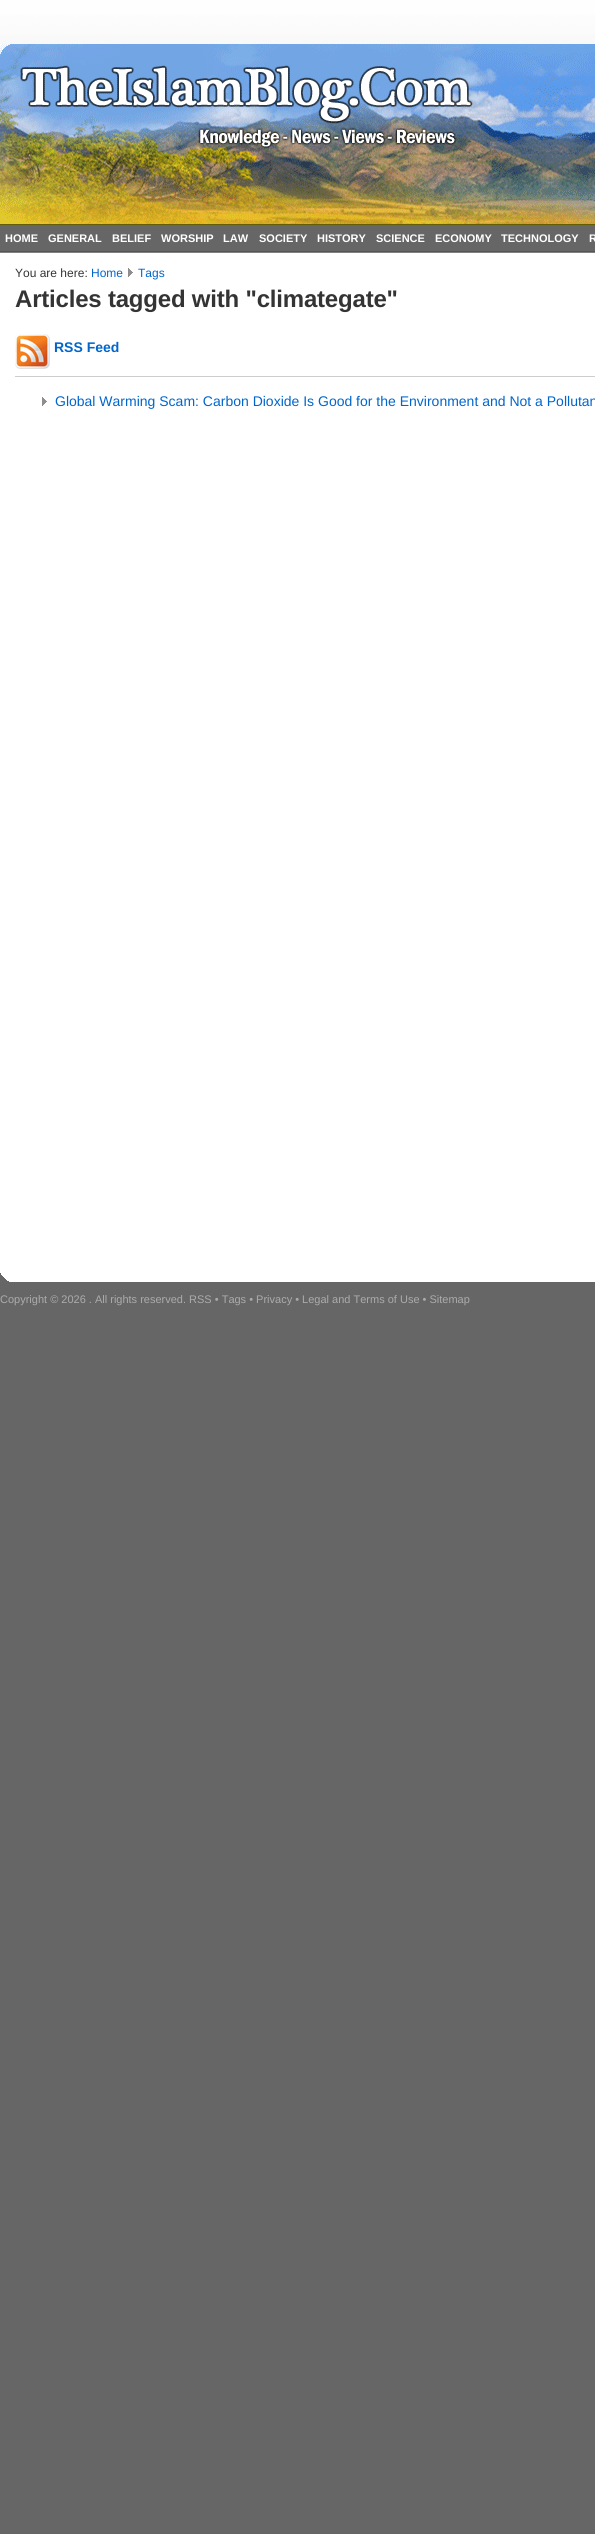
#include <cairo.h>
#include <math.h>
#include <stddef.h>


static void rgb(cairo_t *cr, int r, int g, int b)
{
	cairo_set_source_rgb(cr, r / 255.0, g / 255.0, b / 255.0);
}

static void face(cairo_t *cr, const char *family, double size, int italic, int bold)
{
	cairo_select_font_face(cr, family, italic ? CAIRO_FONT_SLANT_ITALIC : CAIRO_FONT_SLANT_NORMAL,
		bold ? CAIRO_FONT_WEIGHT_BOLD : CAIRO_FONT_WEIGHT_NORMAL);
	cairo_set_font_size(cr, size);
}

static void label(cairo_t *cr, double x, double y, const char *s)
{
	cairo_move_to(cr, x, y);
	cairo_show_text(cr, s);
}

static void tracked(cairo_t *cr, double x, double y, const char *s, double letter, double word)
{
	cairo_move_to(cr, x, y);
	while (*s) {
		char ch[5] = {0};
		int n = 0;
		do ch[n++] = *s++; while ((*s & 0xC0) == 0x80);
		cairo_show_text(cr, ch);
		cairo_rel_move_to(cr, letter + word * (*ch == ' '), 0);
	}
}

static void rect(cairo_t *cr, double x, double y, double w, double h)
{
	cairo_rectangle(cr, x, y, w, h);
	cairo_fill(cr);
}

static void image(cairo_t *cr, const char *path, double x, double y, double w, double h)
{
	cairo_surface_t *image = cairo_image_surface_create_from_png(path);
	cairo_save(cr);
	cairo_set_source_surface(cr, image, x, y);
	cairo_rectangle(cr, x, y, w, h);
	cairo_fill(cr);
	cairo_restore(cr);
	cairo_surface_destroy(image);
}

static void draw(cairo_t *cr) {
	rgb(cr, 102, 102, 102);
	cairo_paint(cr);
	image(cr, "image0.png", 0, 0, 595, 44);
	image(cr, "image1.png", 0, 44, 595, 180);
	rgb(cr, 98, 94, 0);
	rect(cr, 0, 224, 595, 1);
	rect(cr, 0, 251, 595, 1);
	face(cr, "Liberation Sans", 11, 0, 1);
	rgb(cr, 255, 255, 255);
	label(cr, 5, 242, "HOME");
	label(cr, 48, 242, "GENERAL");
	label(cr, 112, 242, "BELIEF");
	label(cr, 161, 242, "WORSHIP");
	label(cr, 223, 242, "LAW");
	label(cr, 259, 242, "SOCIETY");
	label(cr, 317, 242, "HISTORY");
	label(cr, 376, 242, "SCIENCE");
	label(cr, 435, 242, "ECONOMY");
	label(cr, 501, 242, "TECHNOLOGY");
	label(cr, 589, 242, "R");
	rgb(cr, 128, 128, 128);
	rect(cr, 0, 252, 595, 1);
	rgb(cr, 255, 255, 255);
	rect(cr, 0, 253, 595, 1018);
	face(cr, "Liberation Sans", 12, 0, 0);
	rgb(cr, 52, 52, 52);
	label(cr, 15, 277, "You are here:");
	rgb(cr, 0, 102, 204);
	label(cr, 91, 277, "Home");
	image(cr, "image2.png", 128, 268, 5, 9);
	label(cr, 138, 277, "Tags");
	face(cr, "Liberation Sans", 24, 0, 1);
	rgb(cr, 52, 52, 52);
	tracked(cr, 15, 307, "Articles tagged with \"climategate\"", -0.2, 0);
	image(cr, "image3.png", 15, 334, 35, 35);
	face(cr, "Liberation Sans", 14, 0, 1);
	rgb(cr, 0, 102, 204);
	label(cr, 54, 352, "RSS Feed");
	rgb(cr, 205, 205, 205);
	rect(cr, 15, 376, 580, 1);
	image(cr, "image2.png", 42, 397, 5, 9);
	face(cr, "Liberation Sans", 14, 0, 0);
	rgb(cr, 0, 102, 204);
	label(cr, 55, 406, "Global Warming Scam: Carbon Dioxide Is Good for the Environment and Not a Pollutan");
	image(cr, "image4.png", 0, 1271, 11, 11);
	rgb(cr, 255, 255, 255);
	rect(cr, 11, 1271, 584, 11);
	face(cr, "Liberation Sans", 11, 0, 0);
	rgb(cr, 171, 171, 171);
	label(cr, 0, 1303, "Copyright © 2026 . All rights reserved. RSS • Tags • Privacy • Legal and Terms of Use • Sitemap");
}

int main(void) {
	cairo_surface_t *surface = cairo_image_surface_create(CAIRO_FORMAT_RGB24, 595, 2534);
	cairo_t *cr = cairo_create(surface);
	cairo_font_options_t *options = cairo_font_options_create();
	cairo_font_options_set_hint_metrics(options, CAIRO_HINT_METRICS_OFF);
	cairo_font_options_set_hint_style(options, CAIRO_HINT_STYLE_NONE);
	cairo_set_font_options(cr, options);
	cairo_set_miter_limit(cr, 4);
	draw(cr);
	cairo_surface_write_to_png(surface, "render.png");
	cairo_font_options_destroy(options);
	cairo_destroy(cr);
	cairo_surface_destroy(surface);
	return 0;
}
